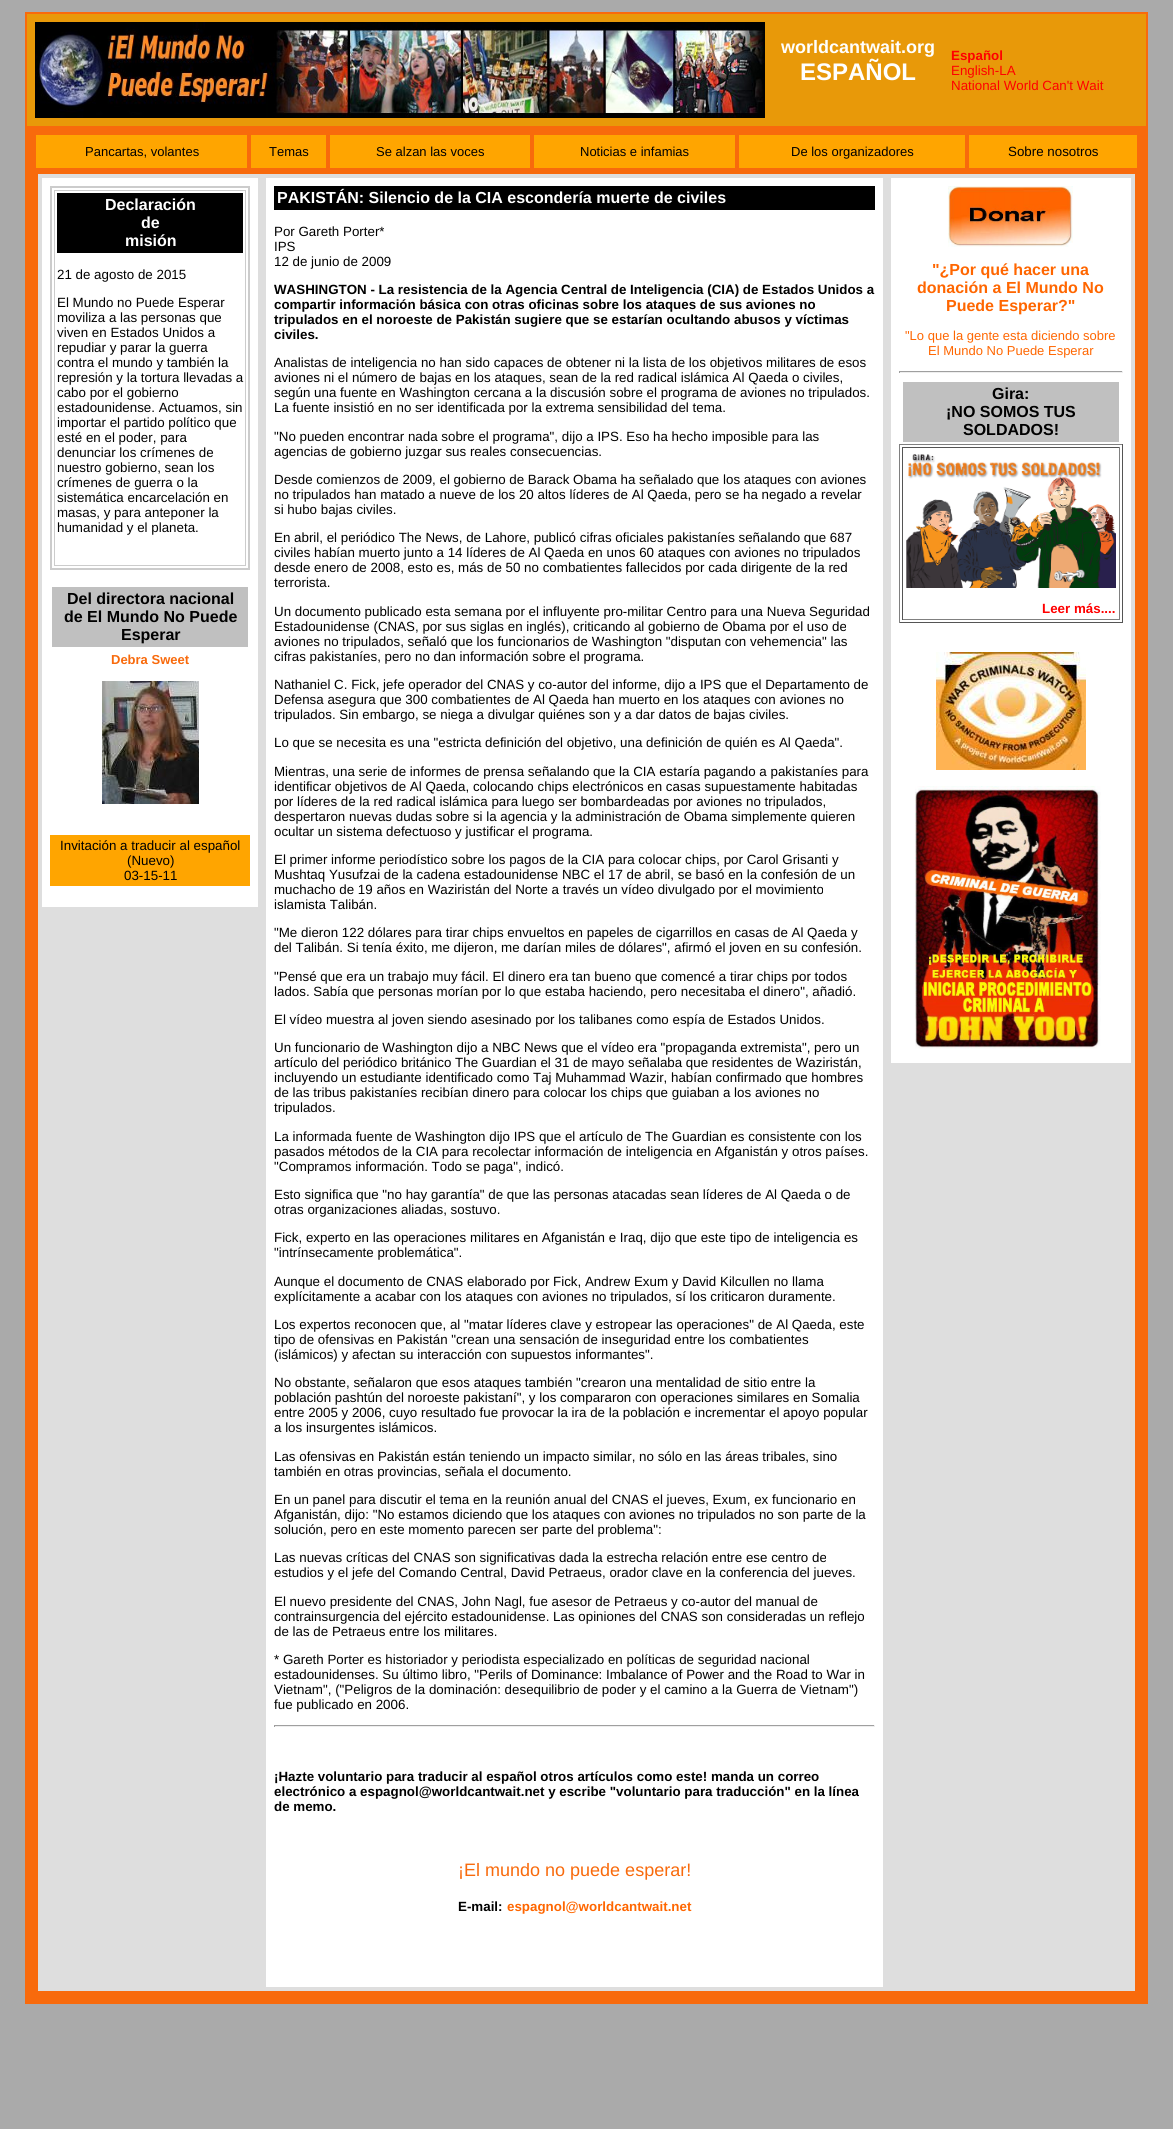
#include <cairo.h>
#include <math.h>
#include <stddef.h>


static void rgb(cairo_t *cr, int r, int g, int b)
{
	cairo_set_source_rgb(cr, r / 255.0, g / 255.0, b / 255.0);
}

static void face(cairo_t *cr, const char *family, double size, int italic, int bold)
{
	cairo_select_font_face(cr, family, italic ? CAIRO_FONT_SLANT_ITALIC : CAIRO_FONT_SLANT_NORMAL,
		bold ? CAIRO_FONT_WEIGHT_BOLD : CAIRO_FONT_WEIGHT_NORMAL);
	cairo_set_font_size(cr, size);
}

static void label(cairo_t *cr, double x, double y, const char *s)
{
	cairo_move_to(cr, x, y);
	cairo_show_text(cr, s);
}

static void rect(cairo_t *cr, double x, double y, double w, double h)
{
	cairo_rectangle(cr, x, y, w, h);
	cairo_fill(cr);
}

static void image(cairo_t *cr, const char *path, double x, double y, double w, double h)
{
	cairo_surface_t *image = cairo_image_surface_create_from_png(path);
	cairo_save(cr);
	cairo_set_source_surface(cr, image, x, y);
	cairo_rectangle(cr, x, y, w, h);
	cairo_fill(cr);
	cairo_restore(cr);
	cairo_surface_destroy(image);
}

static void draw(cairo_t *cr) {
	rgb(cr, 170, 170, 170);
	cairo_paint(cr);
	rgb(cr, 248, 106, 12);
	rect(cr, 25, 12, 1123, 1992);
	rgb(cr, 232, 153, 9);
	rect(cr, 27, 14, 1119, 112);
	image(cr, "image0.png", 35, 22, 730, 96);
	face(cr, "Liberation Sans", 18, 0, 1);
	rgb(cr, 255, 255, 255);
	label(cr, 781, 53, "worldcantwait.org");
	face(cr, "Liberation Sans", 24, 0, 1);
	label(cr, 800, 80, "ESPAÑOL");
	face(cr, "Liberation Sans", 13.35, 0, 1);
	rgb(cr, 255, 0, 0);
	label(cr, 951, 60, "Español");
	face(cr, "Liberation Sans", 13.35, 0, 0);
	label(cr, 951, 75, "English-LA");
	label(cr, 951, 90, "National World Can't Wait");
	rgb(cr, 255, 165, 0);
	rect(cr, 36, 135, 211, 33);
	face(cr, "Liberation Sans", 13, 0, 0);
	rgb(cr, 0, 0, 0);
	label(cr, 85, 156, "Pancartas, volantes");
	rgb(cr, 255, 165, 0);
	rect(cr, 251, 135, 75, 33);
	rgb(cr, 0, 0, 0);
	label(cr, 269, 156, "Temas");
	rgb(cr, 255, 165, 0);
	rect(cr, 330, 135, 200, 33);
	rgb(cr, 0, 0, 0);
	label(cr, 376, 156, "Se alzan las voces");
	rgb(cr, 255, 165, 0);
	rect(cr, 534, 135, 201, 33);
	rgb(cr, 0, 0, 0);
	label(cr, 580, 156, "Noticias e infamias");
	rgb(cr, 255, 165, 0);
	rect(cr, 739, 135, 226, 33);
	rgb(cr, 0, 0, 0);
	label(cr, 791, 156, "De los organizadores");
	rgb(cr, 255, 165, 0);
	rect(cr, 969, 135, 168, 33);
	face(cr, "Liberation Sans", 13.35, 0, 0);
	rgb(cr, 0, 0, 0);
	label(cr, 1008, 156, "Sobre nosotros");
	rgb(cr, 222, 222, 222);
	rect(cr, 38, 174, 1097, 1817);
	rgb(cr, 255, 255, 255);
	rect(cr, 42, 178, 216, 729);
	cairo_rectangle(cr, 51, 187, 198, 382);
	rgb(cr, 204, 204, 204);
	cairo_stroke(cr);
	cairo_rectangle(cr, 54.5, 190.5, 191, 375);
	cairo_set_line_width(cr, 1);
	cairo_stroke(cr);
	rgb(cr, 0, 0, 0);
	rect(cr, 57, 193, 186, 60);
	face(cr, "Liberation Sans", 16, 0, 1);
	rgb(cr, 255, 255, 255);
	label(cr, 105, 210, "Declaración");
	label(cr, 141, 228, "de");
	label(cr, 125, 246, "misión");
	face(cr, "Liberation Sans", 13.35, 0, 0);
	rgb(cr, 0, 0, 0);
	label(cr, 57, 279, "21 de agosto de 2015");
	label(cr, 57, 307, "El Mundo no Puede Esperar");
	label(cr, 57, 322, "moviliza a las personas que");
	label(cr, 57, 337, "viven en Estados Unidos a");
	label(cr, 57, 352, "repudiar y parar la guerra");
	label(cr, 57, 367, "contra el mundo y también la");
	label(cr, 57, 382, "represión y la tortura llevadas a");
	label(cr, 57, 397, "cabo por el gobierno");
	label(cr, 57, 412, "estadounidense. Actuamos, sin");
	label(cr, 57, 427, "importar el partido político que");
	label(cr, 57, 442, "esté en el poder, para");
	label(cr, 57, 457, "denunciar los crímenes de");
	label(cr, 57, 472, "nuestro gobierno, sean los");
	label(cr, 57, 487, "crímenes de guerra o la");
	label(cr, 57, 502, "sistemática encarcelación en");
	label(cr, 57, 517, "masas, y para anteponer la");
	label(cr, 57, 532, "humanidad y el planeta.");
	rgb(cr, 192, 192, 192);
	rect(cr, 52, 587, 196, 60);
	face(cr, "Liberation Sans", 16, 0, 1);
	rgb(cr, 0, 0, 0);
	label(cr, 67, 604, "Del directora nacional");
	label(cr, 64, 622, "de El Mundo No Puede");
	label(cr, 121, 640, "Esperar");
	face(cr, "Liberation Sans", 13, 0, 1);
	rgb(cr, 248, 106, 12);
	label(cr, 111, 664, "Debra Sweet");
	image(cr, "image1.png", 102, 681, 97, 123);
	rgb(cr, 255, 165, 0);
	rect(cr, 50, 835, 200, 51);
	face(cr, "Liberation Sans", 13.35, 0, 0);
	rgb(cr, 0, 0, 0);
	label(cr, 60, 850, "Invitación a traducir al español");
	label(cr, 127, 865, "(Nuevo)");
	label(cr, 124, 880, "03-15-11");
	rgb(cr, 255, 255, 255);
	rect(cr, 266, 178, 617, 1809);
	rgb(cr, 0, 0, 0);
	rect(cr, 274, 186, 601, 24);
	face(cr, "Liberation Sans", 16, 0, 1);
	rgb(cr, 255, 255, 255);
	label(cr, 277, 203, "PAKISTÁN: Silencio de la CIA escondería muerte de civiles");
	face(cr, "Liberation Sans", 13.35, 0, 0);
	rgb(cr, 0, 0, 0);
	label(cr, 274, 236, "Por Gareth Porter*");
	label(cr, 274, 251, "IPS");
	label(cr, 274, 266, "12 de junio de 2009");
	face(cr, "Liberation Sans", 13.35, 0, 1);
	label(cr, 274, 294, "WASHINGTON - La resistencia de la Agencia Central de Inteligencia (CIA) de Estados Unidos a");
	label(cr, 274, 309, "compartir información básica con otras oficinas sobre los ataques de sus aviones no");
	label(cr, 274, 324, "tripulados en el noroeste de Pakistán sugiere que se estarían ocultando abusos y víctimas");
	label(cr, 274, 339, "civiles.");
	face(cr, "Liberation Sans", 13.35, 0, 0);
	label(cr, 274, 367, "Analistas de inteligencia no han sido capaces de obtener ni la lista de los objetivos militares de esos");
	label(cr, 274, 382, "aviones ni el número de bajas en los ataques, sean de la red radical islámica Al Qaeda o civiles,");
	label(cr, 274, 397, "según una fuente en Washington cercana a la discusión sobre el programa de aviones no tripulados.");
	label(cr, 274, 412, "La fuente insistió en no ser identificada por la extrema sensibilidad del tema.");
	label(cr, 274, 441, "\"No pueden encontrar nada sobre el programa\", dijo a IPS. Eso ha hecho imposible para las");
	label(cr, 274, 456, "agencias de gobierno juzgar sus reales consecuencias.");
	label(cr, 274, 484, "Desde comienzos de 2009, el gobierno de Barack Obama ha señalado que los ataques con aviones");
	label(cr, 274, 499, "no tripulados han matado a nueve de los 20 altos líderes de Al Qaeda, pero se ha negado a revelar");
	label(cr, 274, 514, "si hubo bajas civiles.");
	label(cr, 274, 542, "En abril, el periódico The News, de Lahore, publicó cifras oficiales pakistaníes señalando que 687");
	label(cr, 274, 557, "civiles habían muerto junto a 14 líderes de Al Qaeda en unos 60 ataques con aviones no tripulados");
	label(cr, 274, 572, "desde enero de 2008, esto es, más de 50 no combatientes fallecidos por cada dirigente de la red");
	label(cr, 274, 587, "terrorista.");
	label(cr, 274, 616, "Un documento publicado esta semana por el influyente pro-militar Centro para una Nueva Seguridad");
	label(cr, 274, 631, "Estadounidense (CNAS, por sus siglas en inglés), criticando al gobierno de Obama por el uso de");
	label(cr, 274, 646, "aviones no tripulados, señaló que los funcionarios de Washington \"disputan con vehemencia\" las");
	label(cr, 274, 661, "cifras pakistaníes, pero no dan información sobre el programa.");
	label(cr, 274, 689, "Nathaniel C. Fick, jefe operador del CNAS y co-autor del informe, dijo a IPS que el Departamento de");
	label(cr, 274, 704, "Defensa asegura que 300 combatientes de Al Qaeda han muerto en los ataques con aviones no");
	label(cr, 274, 719, "tripulados. Sin embargo, se niega a divulgar quiénes son y a dar datos de bajas civiles.");
	label(cr, 274, 747, "Lo que se necesita es una \"estricta definición del objetivo, una definición de quién es Al Qaeda\".");
	label(cr, 274, 776, "Mientras, una serie de informes de prensa señalando que la CIA estaría pagando a pakistaníes para");
	label(cr, 274, 791, "identificar objetivos de Al Qaeda, colocando chips electrónicos en casas supuestamente habitadas");
	label(cr, 274, 806, "por líderes de la red radical islámica para luego ser bombardeadas por aviones no tripulados,");
	label(cr, 274, 821, "despertaron nuevas dudas sobre si la agencia y la administración de Obama simplemente quieren");
	label(cr, 274, 836, "ocultar un sistema defectuoso y justificar el programa.");
	label(cr, 274, 864, "El primer informe periodístico sobre los pagos de la CIA para colocar chips, por Carol Grisanti y");
	label(cr, 274, 879, "Mushtaq Yusufzai de la cadena estadounidense NBC el 17 de abril, se basó en la confesión de un");
	label(cr, 274, 894, "muchacho de 19 años en Waziristán del Norte a través un vídeo divulgado por el movimiento");
	label(cr, 274, 909, "islamista Talibán.");
	label(cr, 274, 937, "\"Me dieron 122 dólares para tirar chips envueltos en papeles de cigarrillos en casas de Al Qaeda y");
	label(cr, 274, 952, "del Talibán. Si tenía éxito, me dijeron, me darían miles de dólares\", afirmó el joven en su confesión.");
	label(cr, 274, 981, "\"Pensé que era un trabajo muy fácil. El dinero era tan bueno que comencé a tirar chips por todos");
	label(cr, 274, 996, "lados. Sabía que personas morían por lo que estaba haciendo, pero necesitaba el dinero\", añadió.");
	label(cr, 274, 1024, "El vídeo muestra al joven siendo asesinado por los talibanes como espía de Estados Unidos.");
	label(cr, 274, 1052, "Un funcionario de Washington dijo a NBC News que el vídeo era \"propaganda extremista\", pero un");
	label(cr, 274, 1067, "artículo del periódico británico The Guardian el 31 de mayo señalaba que residentes de Waziristán,");
	label(cr, 274, 1082, "incluyendo un estudiante identificado como Taj Muhammad Wazir, habían confirmado que hombres");
	label(cr, 274, 1097, "de las tribus pakistaníes recibían dinero para colocar los chips que guiaban a los aviones no");
	label(cr, 274, 1112, "tripulados.");
	label(cr, 274, 1141, "La informada fuente de Washington dijo IPS que el artículo de The Guardian es consistente con los");
	label(cr, 274, 1156, "pasados métodos de la CIA para recolectar información de inteligencia en Afganistán y otros países.");
	label(cr, 274, 1171, "\"Compramos información. Todo se paga\", indicó.");
	label(cr, 274, 1199, "Esto significa que \"no hay garantía\" de que las personas atacadas sean líderes de Al Qaeda o de");
	label(cr, 274, 1214, "otras organizaciones aliadas, sostuvo.");
	label(cr, 274, 1242, "Fick, experto en las operaciones militares en Afganistán e Iraq, dijo que este tipo de inteligencia es");
	label(cr, 274, 1257, "\"intrínsecamente problemática\".");
	label(cr, 274, 1286, "Aunque el documento de CNAS elaborado por Fick, Andrew Exum y David Kilcullen no llama");
	label(cr, 274, 1301, "explícitamente a acabar con los ataques con aviones no tripulados, sí los criticaron duramente.");
	label(cr, 274, 1329, "Los expertos reconocen que, al \"matar líderes clave y estropear las operaciones\" de Al Qaeda, este");
	label(cr, 274, 1344, "tipo de ofensivas en Pakistán \"crean una sensación de inseguridad entre los combatientes");
	label(cr, 274, 1359, "(islámicos) y afectan su interacción con supuestos informantes\".");
	label(cr, 274, 1387, "No obstante, señalaron que esos ataques también \"crearon una mentalidad de sitio entre la");
	label(cr, 274, 1402, "población pashtún del noroeste pakistaní\", y los compararon con operaciones similares en Somalia");
	label(cr, 274, 1417, "entre 2005 y 2006, cuyo resultado fue provocar la ira de la población e incrementar el apoyo popular");
	label(cr, 274, 1432, "a los insurgentes islámicos.");
	label(cr, 274, 1461, "Las ofensivas en Pakistán están teniendo un impacto similar, no sólo en las áreas tribales, sino");
	label(cr, 274, 1476, "también en otras provincias, señala el documento.");
	label(cr, 274, 1504, "En un panel para discutir el tema en la reunión anual del CNAS el jueves, Exum, ex funcionario en");
	label(cr, 274, 1519, "Afganistán, dijo: \"No estamos diciendo que los ataques con aviones no tripulados no son parte de la");
	label(cr, 274, 1534, "solución, pero en este momento parecen ser parte del problema\":");
	label(cr, 274, 1562, "Las nuevas críticas del CNAS son significativas dada la estrecha relación entre ese centro de");
	label(cr, 274, 1577, "estudios y el jefe del Comando Central, David Petraeus, orador clave en la conferencia del jueves.");
	label(cr, 274, 1606, "El nuevo presidente del CNAS, John Nagl, fue asesor de Petraeus y co-autor del manual de");
	label(cr, 274, 1621, "contrainsurgencia del ejército estadounidense. Las opiniones del CNAS son consideradas un reflejo");
	label(cr, 274, 1636, "de las de Petraeus entre los militares.");
	label(cr, 274, 1664, "* Gareth Porter es historiador y periodista especializado en políticas de seguridad nacional");
	label(cr, 274, 1679, "estadounidenses. Su último libro, \"Perils of Dominance: Imbalance of Power and the Road to War in");
	label(cr, 274, 1694, "Vietnam\", (\"Peligros de la dominación: desequilibrio de poder y el camino a la Guerra de Vietnam\")");
	label(cr, 274, 1709, "fue publicado en 2006.");
	rgb(cr, 159, 159, 159);
	rect(cr, 274, 1725, 601, 1);
	rgb(cr, 238, 238, 238);
	rect(cr, 874, 1725, 1, 2);
	rect(cr, 274, 1726, 601, 1);
	rgb(cr, 159, 159, 159);
	rect(cr, 274, 1725, 1, 2);
	face(cr, "Liberation Sans", 13.35, 0, 1);
	rgb(cr, 0, 0, 0);
	label(cr, 274, 1781, "¡Hazte voluntario para traducir al español otros artículos como este! manda un correo");
	label(cr, 274, 1796, "electrónico a espagnol@worldcantwait.net y escribe \"voluntario para traducción\" en la línea");
	label(cr, 274, 1811, "de memo.");
	face(cr, "Liberation Sans", 18, 0, 0);
	rgb(cr, 248, 106, 12);
	label(cr, 458, 1876, "¡El mundo no puede esperar!");
	face(cr, "Liberation Sans", 13.35, 0, 1);
	rgb(cr, 0, 0, 0);
	label(cr, 458, 1911, "E-mail:");
	rgb(cr, 255, 102, 0);
	label(cr, 507, 1911, "espagnol@worldcantwait.net");
	rgb(cr, 255, 255, 255);
	rect(cr, 891, 178, 240, 885);
	image(cr, "image2.png", 948, 186, 125, 61);
	face(cr, "Liberation Sans", 16, 0, 1);
	rgb(cr, 255, 102, 0);
	label(cr, 932, 275, "\"¿Por qué hacer una");
	label(cr, 917, 293, "donación a El Mundo No");
	label(cr, 946, 311, "Puede Esperar?\"");
	face(cr, "Liberation Sans", 13, 0, 0);
	label(cr, 905, 340, "\"Lo que la gente esta diciendo sobre");
	label(cr, 928, 355, "El Mundo No Puede Esperar");
	rgb(cr, 159, 159, 159);
	rect(cr, 899, 371, 224, 1);
	rgb(cr, 238, 238, 238);
	rect(cr, 1122, 371, 1, 2);
	rect(cr, 899, 372, 224, 1);
	rgb(cr, 159, 159, 159);
	rect(cr, 899, 371, 1, 2);
	rgb(cr, 192, 192, 192);
	rect(cr, 903, 382, 216, 60);
	face(cr, "Liberation Sans", 16, 0, 1);
	rgb(cr, 0, 0, 0);
	label(cr, 992, 399, "Gira:");
	label(cr, 946, 417, "¡NO SOMOS TUS");
	label(cr, 963, 435, "SOLDADOS!");
	rgb(cr, 128, 128, 128);
	rect(cr, 899, 444, 224, 1);
	rgb(cr, 85, 85, 85);
	rect(cr, 1122, 444, 1, 179);
	rect(cr, 899, 622, 224, 1);
	rgb(cr, 128, 128, 128);
	rect(cr, 899, 444, 1, 179);
	rgb(cr, 85, 85, 85);
	rect(cr, 902, 447, 218, 1);
	rgb(cr, 128, 128, 128);
	rect(cr, 1119, 447, 1, 173);
	rect(cr, 902, 619, 218, 1);
	rgb(cr, 85, 85, 85);
	rect(cr, 902, 447, 1, 173);
	image(cr, "image3.png", 906, 454, 210, 134);
	face(cr, "Liberation Sans", 13.35, 0, 1);
	rgb(cr, 255, 0, 0);
	label(cr, 1042, 613, "Leer más....");
	image(cr, "image4.png", 936, 652, 150, 118);
	image(cr, "image5.png", 915, 786, 186, 263);
}

int main(void) {
	cairo_surface_t *surface = cairo_image_surface_create(CAIRO_FORMAT_RGB24, 1173, 2129);
	cairo_t *cr = cairo_create(surface);
	cairo_font_options_t *options = cairo_font_options_create();
	cairo_font_options_set_hint_metrics(options, CAIRO_HINT_METRICS_OFF);
	cairo_font_options_set_hint_style(options, CAIRO_HINT_STYLE_NONE);
	cairo_set_font_options(cr, options);
	cairo_set_miter_limit(cr, 4);
	draw(cr);
	cairo_surface_write_to_png(surface, "render.png");
	cairo_font_options_destroy(options);
	cairo_destroy(cr);
	cairo_surface_destroy(surface);
	return 0;
}
